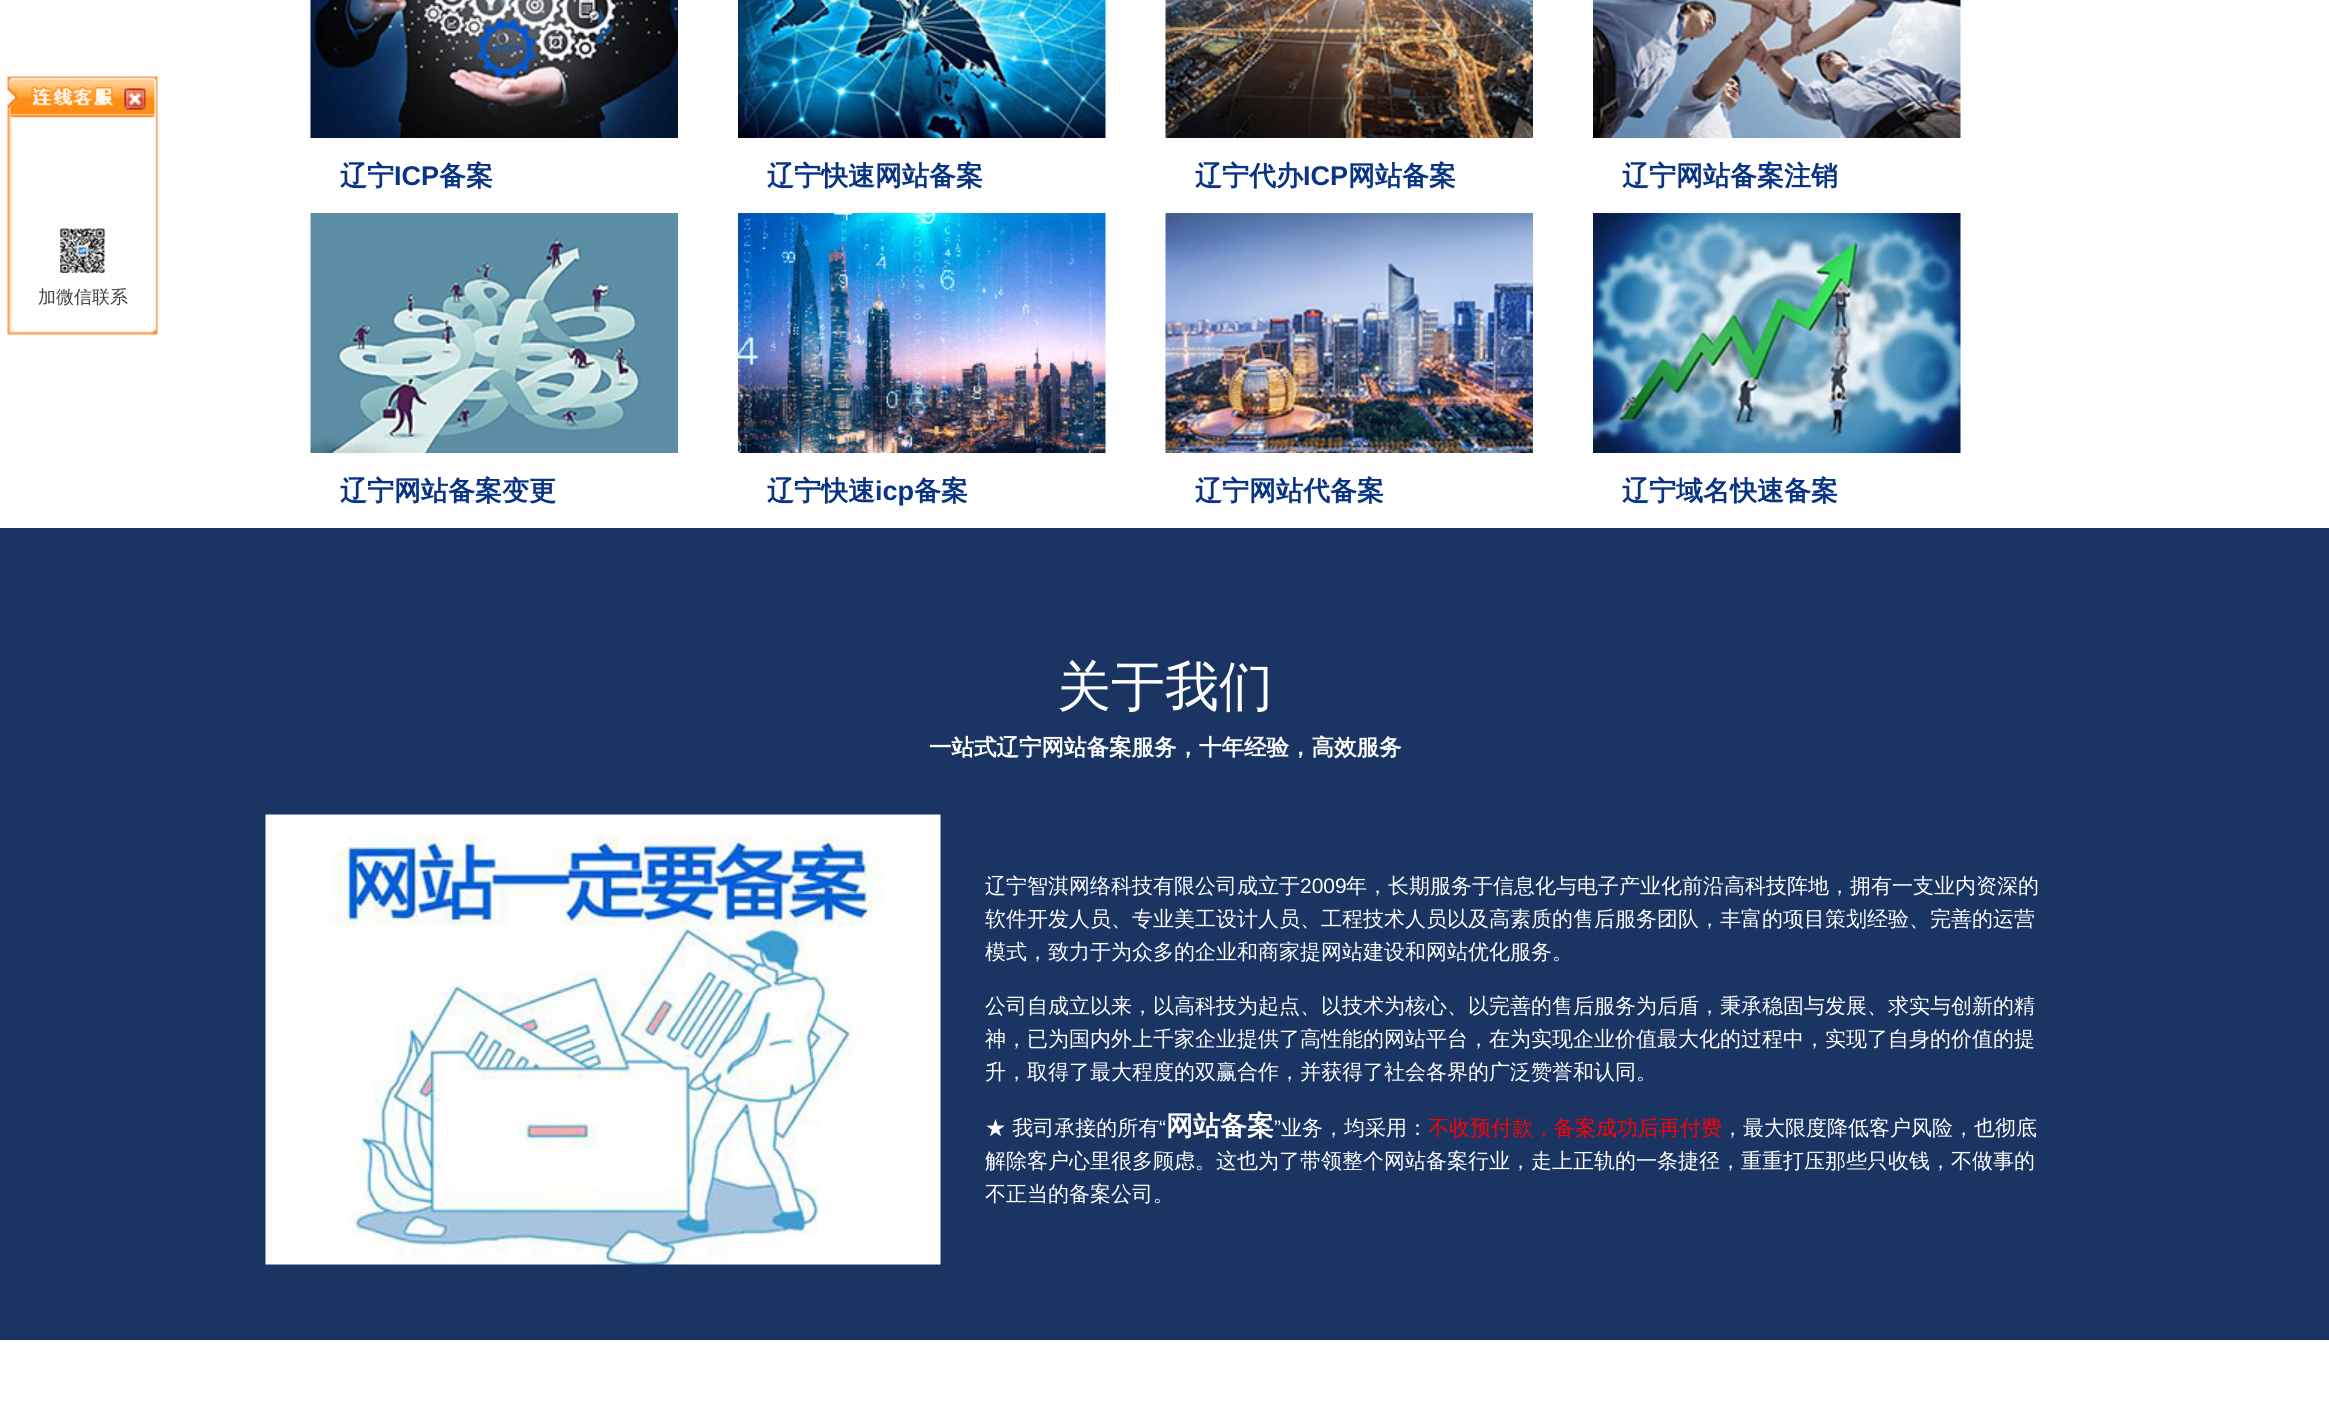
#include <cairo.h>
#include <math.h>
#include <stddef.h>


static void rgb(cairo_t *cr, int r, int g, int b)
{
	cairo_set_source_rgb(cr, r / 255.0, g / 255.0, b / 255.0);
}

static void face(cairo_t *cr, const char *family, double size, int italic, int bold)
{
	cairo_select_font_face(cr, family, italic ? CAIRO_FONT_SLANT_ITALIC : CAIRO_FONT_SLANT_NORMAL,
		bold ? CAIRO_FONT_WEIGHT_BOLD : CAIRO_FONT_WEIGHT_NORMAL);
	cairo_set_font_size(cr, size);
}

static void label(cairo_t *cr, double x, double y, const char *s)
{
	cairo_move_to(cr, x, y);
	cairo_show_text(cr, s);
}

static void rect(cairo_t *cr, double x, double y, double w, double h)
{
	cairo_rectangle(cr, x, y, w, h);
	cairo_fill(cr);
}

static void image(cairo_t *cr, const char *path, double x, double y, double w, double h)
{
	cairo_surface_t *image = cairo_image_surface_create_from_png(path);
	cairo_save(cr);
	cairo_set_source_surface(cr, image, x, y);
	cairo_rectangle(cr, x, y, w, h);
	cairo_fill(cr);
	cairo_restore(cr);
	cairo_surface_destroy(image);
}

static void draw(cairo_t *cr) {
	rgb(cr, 255, 255, 255);
	cairo_paint(cr);
	image(cr, "image0.png", 310, 0, 368, 138);
	face(cr, "WenQuanYi Zen Hei", 27, 0, 1);
	rgb(cr, 9, 52, 132);
	label(cr, 340, 185, "辽宁");
	face(cr, "Liberation Sans", 27, 0, 1);
	label(cr, 394, 185, "ICP");
	face(cr, "WenQuanYi Zen Hei", 27, 0, 1);
	label(cr, 439, 185, "备案");
	image(cr, "image1.png", 738, 0, 368, 138);
	label(cr, 767, 185, "辽宁快速网站备案");
	image(cr, "image2.png", 1165, 0, 368, 138);
	label(cr, 1195, 185, "辽宁代办");
	face(cr, "Liberation Sans", 27, 0, 1);
	label(cr, 1303, 185, "ICP");
	face(cr, "WenQuanYi Zen Hei", 27, 0, 1);
	label(cr, 1348, 185, "网站备案");
	image(cr, "image3.png", 1593, 0, 368, 138);
	label(cr, 1622, 185, "辽宁网站备案注销");
	image(cr, "image4.png", 7, 76, 151, 44);
	image(cr, "image5.png", 7, 120, 151, 203);
	image(cr, "image6.png", 60, 228, 45, 45);
	face(cr, "WenQuanYi Zen Hei Medium", 18, 0, 0);
	rgb(cr, 65, 62, 63);
	label(cr, 38, 303, "加微信联系");
	image(cr, "image7.png", 7, 322, 151, 13);
	image(cr, "image8.png", 310, 213, 368, 240);
	face(cr, "WenQuanYi Zen Hei", 27, 0, 1);
	rgb(cr, 9, 52, 132);
	label(cr, 340, 500, "辽宁网站备案变更");
	image(cr, "image9.png", 738, 213, 368, 240);
	label(cr, 767, 500, "辽宁快速");
	face(cr, "Liberation Sans", 27, 0, 1);
	label(cr, 875, 500, "icp");
	face(cr, "WenQuanYi Zen Hei", 27, 0, 1);
	label(cr, 914, 500, "备案");
	image(cr, "image10.png", 1165, 213, 368, 240);
	label(cr, 1195, 500, "辽宁网站代备案");
	image(cr, "image11.png", 1593, 213, 368, 240);
	label(cr, 1622, 500, "辽宁域名快速备案");
	rgb(cr, 26, 53, 100);
	rect(cr, 0, 528, 2329, 812);
	face(cr, "WenQuanYi Zen Hei Medium", 54, 0, 0);
	rgb(cr, 255, 255, 255);
	label(cr, 1057, 705, "关于我们");
	face(cr, "WenQuanYi Zen Hei", 22.5, 0, 1);
	label(cr, 929, 755, "一站式辽宁网站备案服务，十年经验，高效服务");
	image(cr, "image12.png", 265, 814, 676, 451);
	face(cr, "WenQuanYi Zen Hei Medium", 21, 0, 0);
	label(cr, 985, 893, "辽宁智淇网络科技有限公司成立于");
	face(cr, "Liberation Sans", 21, 0, 0);
	label(cr, 1300, 893, "2009");
	face(cr, "WenQuanYi Zen Hei Medium", 21, 0, 0);
	label(cr, 1346, 893, "年，长期服务于信息化与电子产业化前沿高科技阵地，拥有一支业内资深的");
	label(cr, 985, 926, "软件开发人员、专业美工设计人员、工程技术人员以及高素质的售后服务团队，丰富的项目策划经验、完善的运营");
	label(cr, 985, 959, "模式，致力于为众多的企业和商家提网站建设和网站优化服务。");
	label(cr, 985, 1013, "公司自成立以来，以高科技为起点、以技术为核心、以完善的售后服务为后盾，秉承稳固与发展、求实与创新的精");
	label(cr, 985, 1046, "神，已为国内外上千家企业提供了高性能的网站平台，在为实现企业价值最大化的过程中，实现了自身的价值的提");
	label(cr, 985, 1079, "升，取得了最大程度的双赢合作，并获得了社会各界的广泛赞誉和认同。");
	label(cr, 985, 1135, "★ 我司承接的所有");
	face(cr, "Liberation Sans", 21, 0, 0);
	label(cr, 1159, 1135, "“");
	face(cr, "WenQuanYi Zen Hei", 27, 0, 1);
	label(cr, 1166, 1135, "网站备案");
	face(cr, "Liberation Sans", 21, 0, 0);
	label(cr, 1274, 1135, "”");
	face(cr, "WenQuanYi Zen Hei Medium", 21, 0, 0);
	label(cr, 1281, 1135, "业务，均采用：");
	rgb(cr, 255, 0, 0);
	label(cr, 1428, 1135, "不收预付款，备案成功后再付费");
	rgb(cr, 255, 255, 255);
	label(cr, 1722, 1135, "，最大限度降低客户风险，也彻底");
	label(cr, 985, 1168, "解除客户心里很多顾虑。这也为了带领整个网站备案行业，走上正轨的一条捷径，重重打压那些只收钱，不做事的");
	label(cr, 985, 1201, "不正当的备案公司。");
}

int main(void) {
	cairo_surface_t *surface = cairo_image_surface_create(CAIRO_FORMAT_RGB24, 2329, 1413);
	cairo_t *cr = cairo_create(surface);
	cairo_font_options_t *options = cairo_font_options_create();
	cairo_font_options_set_hint_metrics(options, CAIRO_HINT_METRICS_OFF);
	cairo_font_options_set_hint_style(options, CAIRO_HINT_STYLE_NONE);
	cairo_set_font_options(cr, options);
	cairo_set_miter_limit(cr, 4);
	draw(cr);
	cairo_surface_write_to_png(surface, "render.png");
	cairo_font_options_destroy(options);
	cairo_destroy(cr);
	cairo_surface_destroy(surface);
	return 0;
}
